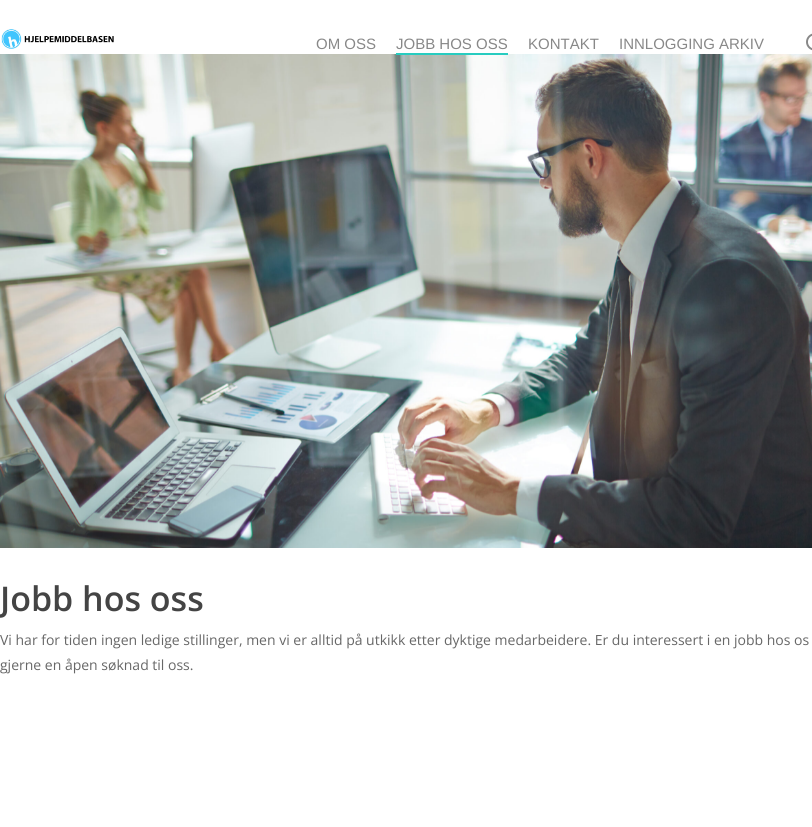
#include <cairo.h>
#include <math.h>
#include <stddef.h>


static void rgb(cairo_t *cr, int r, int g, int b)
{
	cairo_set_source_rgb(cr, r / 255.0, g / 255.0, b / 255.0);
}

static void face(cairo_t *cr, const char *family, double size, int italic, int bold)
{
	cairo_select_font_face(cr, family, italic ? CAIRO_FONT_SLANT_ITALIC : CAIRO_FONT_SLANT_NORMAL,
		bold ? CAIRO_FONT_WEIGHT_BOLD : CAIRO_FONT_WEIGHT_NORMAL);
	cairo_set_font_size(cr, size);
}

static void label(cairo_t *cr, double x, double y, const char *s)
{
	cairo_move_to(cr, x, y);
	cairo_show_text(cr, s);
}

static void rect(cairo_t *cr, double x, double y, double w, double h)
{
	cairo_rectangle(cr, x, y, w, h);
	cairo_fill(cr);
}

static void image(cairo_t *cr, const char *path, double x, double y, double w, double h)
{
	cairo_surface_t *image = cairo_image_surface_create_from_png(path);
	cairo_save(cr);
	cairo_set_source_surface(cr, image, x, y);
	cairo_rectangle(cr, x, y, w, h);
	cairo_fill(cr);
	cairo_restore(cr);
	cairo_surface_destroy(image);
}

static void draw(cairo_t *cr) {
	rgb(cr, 255, 255, 255);
	cairo_paint(cr);
	image(cr, "image0.png", 1, 29, 113, 20);
	face(cr, "Liberation Sans", 15, 0, 0);
	rgb(cr, 136, 136, 136);
	label(cr, 316, 49, "OM OSS");
	label(cr, 396, 49, "JOBB HOS OSS");
	image(cr, "image2.png", 0, 54, 812, 494);
	rgb(cr, 39, 204, 192);
	rect(cr, 396, 53, 112, 2);
	rgb(cr, 136, 136, 136);
	label(cr, 528, 49, "KONTAKT");
	label(cr, 619, 49, "INNLOGGING ARKIV");
	image(cr, "image1.png", 806, 33, 6, 18);
	face(cr, "Open Sans SemiBold", 34, 0, 0);
	rgb(cr, 68, 68, 68);
	label(cr, 0, 611, "Jobb hos oss");
	face(cr, "Open Sans", 14, 0, 0);
	rgb(cr, 103, 103, 103);
	label(cr, 0, 645, "Vi har for tiden ingen ledige stillinger, men vi er alltid på utkikk etter dyktige medarbeidere. Er du interessert i en jobb hos os");
	label(cr, 0, 670, "gjerne en åpen søknad til oss.");
}

int main(void) {
	cairo_surface_t *surface = cairo_image_surface_create(CAIRO_FORMAT_RGB24, 812, 827);
	cairo_t *cr = cairo_create(surface);
	cairo_font_options_t *options = cairo_font_options_create();
	cairo_font_options_set_hint_metrics(options, CAIRO_HINT_METRICS_OFF);
	cairo_font_options_set_hint_style(options, CAIRO_HINT_STYLE_NONE);
	cairo_set_font_options(cr, options);
	cairo_set_miter_limit(cr, 4);
	draw(cr);
	cairo_surface_write_to_png(surface, "render.png");
	cairo_font_options_destroy(options);
	cairo_destroy(cr);
	cairo_surface_destroy(surface);
	return 0;
}
